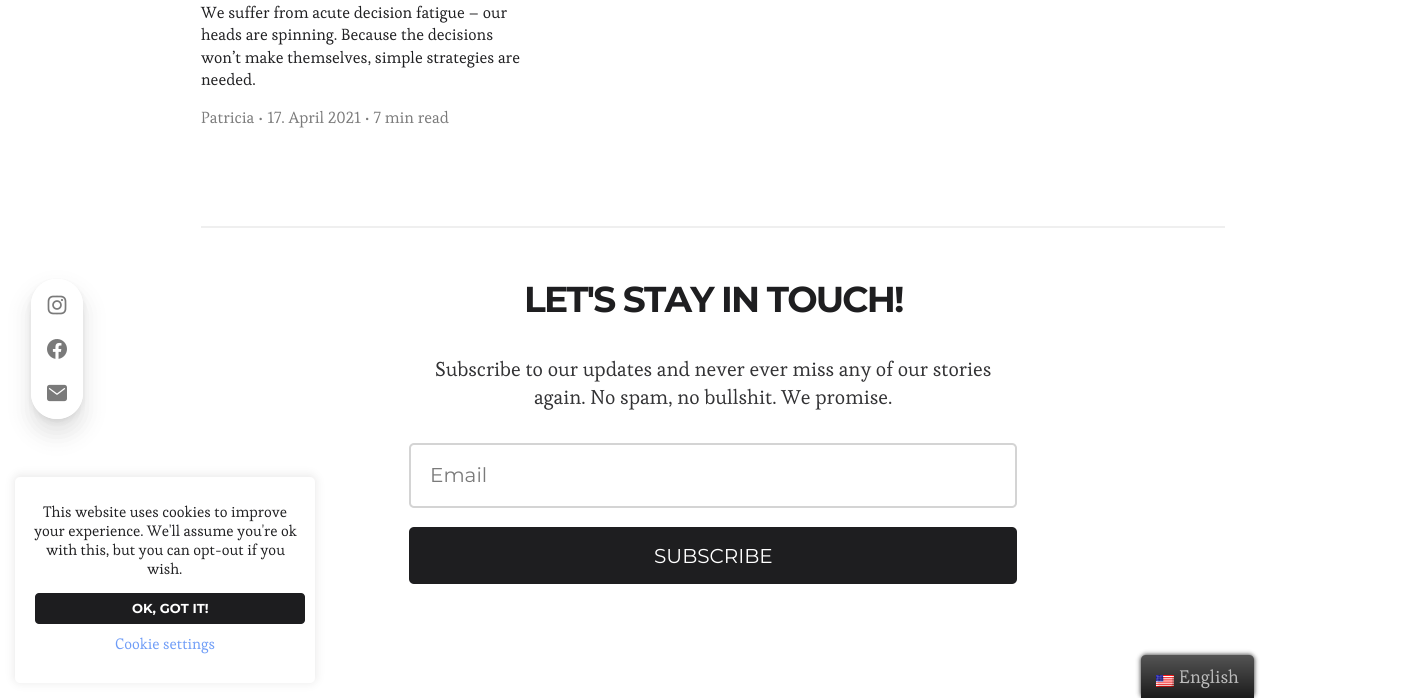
#include <cairo.h>
#include <math.h>
#include <stddef.h>


static void rgb(cairo_t *cr, int r, int g, int b)
{
	cairo_set_source_rgb(cr, r / 255.0, g / 255.0, b / 255.0);
}

static void face(cairo_t *cr, const char *family, double size, int italic, int bold)
{
	cairo_select_font_face(cr, family, italic ? CAIRO_FONT_SLANT_ITALIC : CAIRO_FONT_SLANT_NORMAL,
		bold ? CAIRO_FONT_WEIGHT_BOLD : CAIRO_FONT_WEIGHT_NORMAL);
	cairo_set_font_size(cr, size);
}

static void label(cairo_t *cr, double x, double y, const char *s)
{
	cairo_move_to(cr, x, y);
	cairo_show_text(cr, s);
}

static void tracked(cairo_t *cr, double x, double y, const char *s, double letter, double word)
{
	cairo_move_to(cr, x, y);
	while (*s) {
		char ch[5] = {0};
		int n = 0;
		do ch[n++] = *s++; while ((*s & 0xC0) == 0x80);
		cairo_show_text(cr, ch);
		cairo_rel_move_to(cr, letter + word * (*ch == ' '), 0);
	}
}

static void rect(cairo_t *cr, double x, double y, double w, double h)
{
	cairo_rectangle(cr, x, y, w, h);
	cairo_fill(cr);
}

static void rrect(cairo_t *cr, double x, double y, double w, double h, double r)
{
	cairo_new_sub_path(cr);
	cairo_arc(cr, x + w - r, y + h - r, r, 0, M_PI / 2);
	cairo_arc(cr, x + r, y + h - r, r, M_PI / 2, M_PI);
	cairo_arc(cr, x + r, y + r, r, M_PI, 1.5 * M_PI);
	cairo_arc(cr, x + w - r, y + r, r, 1.5 * M_PI, 2 * M_PI);
	cairo_close_path(cr);
}

static void soft_shadow(cairo_t *cr, double x, double y, double w, double h, double r, double blur, double alpha)
{
	cairo_push_group_with_content(cr, CAIRO_CONTENT_ALPHA);
	cairo_set_operator(cr, CAIRO_OPERATOR_SOURCE);
	for (int i = 15; i >= -15 && fmin(w, h) + blur * i / 3 > 0; i -= 2) {
		double e = blur * i / 6;
		cairo_set_source_rgba(cr, 0, 0, 0, alpha * erfc((i - 1) / 8.5) / 2);
		rrect(cr, x - e, y - e, w + 2 * e, h + 2 * e, fmax(0, fmin(r + e + blur * .6, fmin(w, h) / 2 + e)));
		cairo_fill(cr);
	}
	cairo_pattern_t *soft = cairo_pop_group(cr);
	cairo_mask(cr, soft);
	cairo_pattern_destroy(soft);
}

static void image(cairo_t *cr, const char *path, double x, double y, double w, double h)
{
	cairo_surface_t *image = cairo_image_surface_create_from_png(path);
	cairo_save(cr);
	cairo_set_source_surface(cr, image, x, y);
	cairo_rectangle(cr, x, y, w, h);
	cairo_fill(cr);
	cairo_restore(cr);
	cairo_surface_destroy(image);
}

static void draw(cairo_t *cr) {
	cairo_pattern_t *gradient;
	rgb(cr, 255, 255, 255);
	cairo_paint(cr);
	cairo_save(cr);
	cairo_set_fill_rule(cr, CAIRO_FILL_RULE_EVEN_ODD);
	cairo_new_path(cr);
	cairo_move_to(cr, 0, 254);
	cairo_line_to(cr, 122, 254);
	cairo_line_to(cr, 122, 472);
	cairo_line_to(cr, 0, 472);
	cairo_close_path(cr);
	cairo_move_to(cr, 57, 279);
	cairo_curve_to(cr, 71.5, 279, 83, 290.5, 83, 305);
	cairo_line_to(cr, 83, 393);
	cairo_curve_to(cr, 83, 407.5, 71.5, 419, 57, 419);
	cairo_curve_to(cr, 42.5, 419, 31, 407.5, 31, 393);
	cairo_line_to(cr, 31, 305);
	cairo_curve_to(cr, 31, 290.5, 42.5, 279, 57, 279);
	cairo_close_path(cr);
	cairo_clip(cr);
	rgb(cr, 0, 0, 0);
	soft_shadow(cr, 31, 293, 52, 140, 26, 12.5, 0.12);
	cairo_restore(cr);
	cairo_save(cr);
	cairo_set_fill_rule(cr, CAIRO_FILL_RULE_EVEN_ODD);
	cairo_new_path(cr);
	cairo_move_to(cr, 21, 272);
	cairo_line_to(cr, 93, 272);
	cairo_line_to(cr, 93, 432);
	cairo_line_to(cr, 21, 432);
	cairo_close_path(cr);
	cairo_move_to(cr, 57, 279);
	cairo_curve_to(cr, 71.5, 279, 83, 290.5, 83, 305);
	cairo_line_to(cr, 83, 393);
	cairo_curve_to(cr, 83, 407.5, 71.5, 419, 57, 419);
	cairo_curve_to(cr, 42.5, 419, 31, 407.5, 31, 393);
	cairo_line_to(cr, 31, 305);
	cairo_curve_to(cr, 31, 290.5, 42.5, 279, 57, 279);
	cairo_close_path(cr);
	cairo_clip(cr);
	rgb(cr, 0, 0, 0);
	soft_shadow(cr, 31, 282, 52, 140, 26, 3, 0.08);
	cairo_restore(cr);
	cairo_set_source_rgba(cr, 1, 1, 1, 0.95);
	rrect(cr, 31, 279, 52, 140, 26);
	cairo_fill(cr);
	image(cr, "image0.png", 47, 295, 20, 20);
	image(cr, "image1.png", 47, 339, 20, 20);
	image(cr, "image2.png", 47, 384, 20, 18);
	face(cr, "Esteban", 16, 0, 0);
	rgb(cr, 30, 30, 32);
	label(cr, 201, 18, "We suffer from acute decision fatigue – our");
	label(cr, 201, 40, "heads are spinning. Because the decisions");
	label(cr, 201, 63, "won’t make themselves, simple strategies are");
	label(cr, 201, 85, "needed.");
	rgb(cr, 122, 122, 122);
	label(cr, 201, 123, "Patricia • 17. April 2021 • 7 min read");
	rgb(cr, 239, 239, 239);
	rect(cr, 201, 226, 1024, 2);
	face(cr, "Montserrat", 36, 0, 1);
	rgb(cr, 30, 30, 32);
	tracked(cr, 524, 312, "LET'S STAY IN TOUCH!", -1.8, 0);
	face(cr, "Esteban", 20, 0, 0);
	rgb(cr, 50, 50, 52);
	label(cr, 435, 376, "Subscribe to our updates and never ever miss any of our stories");
	label(cr, 534, 404, "again. No spam, no bullshit. We promise.");
	rrect(cr, 410, 444, 606, 63, 4);
	rgb(cr, 212, 212, 212);
	cairo_stroke(cr);
	face(cr, "Montserrat", 20, 0, 0);
	rgb(cr, 122, 122, 122);
	label(cr, 430, 482, "Email");
	rgb(cr, 30, 30, 32);
	rrect(cr, 409, 527, 608, 57, 5);
	cairo_fill(cr);
	rgb(cr, 255, 255, 255);
	label(cr, 654, 563, "SUBSCRIBE");
	rgb(cr, 172, 171, 171);
	soft_shadow(cr, 15, 476, 300, 206, 5, 5, 0.3);
	rgb(cr, 255, 255, 255);
	rrect(cr, 15, 477, 300, 206, 5);
	cairo_fill(cr);
	face(cr, "Esteban", 15, 0, 0);
	rgb(cr, 30, 30, 32);
	label(cr, 43, 517, "This website uses cookies to improve");
	label(cr, 34, 536, "your experience. We'll assume you're ok");
	label(cr, 46, 555, "with this, but you can opt-out if you");
	label(cr, 147, 574, "wish.");
	rgb(cr, 29, 29, 31);
	rrect(cr, 35, 593, 270, 31, 4);
	cairo_fill(cr);
	face(cr, "Montserrat", 13, 0, 1);
	rgb(cr, 255, 255, 255);
	label(cr, 132, 613, "OK, GOT IT!");
	face(cr, "Esteban", 15, 0, 0);
	rgb(cr, 110, 156, 247);
	label(cr, 115, 649, "Cookie settings");
	rgb(cr, 33, 33, 33);
	soft_shadow(cr, 1141, 655, 113, 43, 5, 2.5, 1);
	gradient = cairo_pattern_create_linear(1198, 698, 1198, 655);
	cairo_pattern_add_color_stop_rgba(gradient, 0, 0.106, 0.106, 0.106, 1);
	cairo_pattern_add_color_stop_rgba(gradient, 1, 0.329, 0.329, 0.329, 1);
	cairo_set_source(cr, gradient);
	cairo_pattern_destroy(gradient);
	cairo_new_path(cr);
	cairo_move_to(cr, 1146, 655);
	cairo_line_to(cr, 1249, 655);
	cairo_curve_to(cr, 1252, 655, 1254, 657, 1254, 660);
	cairo_line_to(cr, 1254, 698);
	cairo_line_to(cr, 1141, 698);
	cairo_line_to(cr, 1141, 660);
	cairo_curve_to(cr, 1141, 657, 1143, 655, 1146, 655);
	cairo_close_path(cr);
	cairo_fill(cr);
	image(cr, "image3.png", 1156, 675, 18, 12);
	face(cr, "Esteban", 18, 0, 0);
	rgb(cr, 189, 189, 189);
	label(cr, 1179, 683, "English");
}

int main(void) {
	cairo_surface_t *surface = cairo_image_surface_create(CAIRO_FORMAT_RGB24, 1426, 698);
	cairo_t *cr = cairo_create(surface);
	cairo_font_options_t *options = cairo_font_options_create();
	cairo_font_options_set_hint_metrics(options, CAIRO_HINT_METRICS_OFF);
	cairo_font_options_set_hint_style(options, CAIRO_HINT_STYLE_NONE);
	cairo_set_font_options(cr, options);
	cairo_set_miter_limit(cr, 4);
	draw(cr);
	cairo_surface_write_to_png(surface, "render.png");
	cairo_font_options_destroy(options);
	cairo_destroy(cr);
	cairo_surface_destroy(surface);
	return 0;
}
